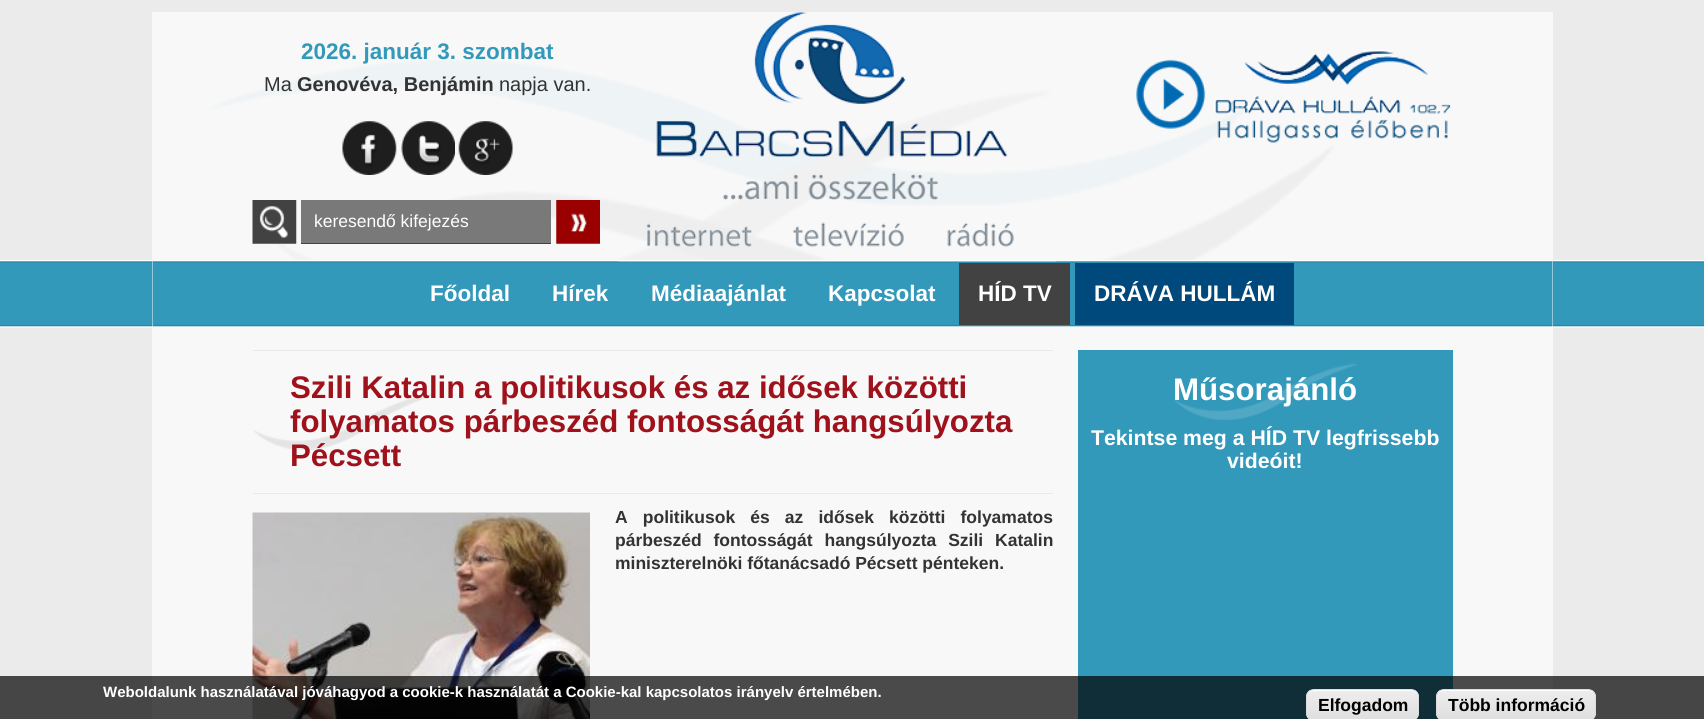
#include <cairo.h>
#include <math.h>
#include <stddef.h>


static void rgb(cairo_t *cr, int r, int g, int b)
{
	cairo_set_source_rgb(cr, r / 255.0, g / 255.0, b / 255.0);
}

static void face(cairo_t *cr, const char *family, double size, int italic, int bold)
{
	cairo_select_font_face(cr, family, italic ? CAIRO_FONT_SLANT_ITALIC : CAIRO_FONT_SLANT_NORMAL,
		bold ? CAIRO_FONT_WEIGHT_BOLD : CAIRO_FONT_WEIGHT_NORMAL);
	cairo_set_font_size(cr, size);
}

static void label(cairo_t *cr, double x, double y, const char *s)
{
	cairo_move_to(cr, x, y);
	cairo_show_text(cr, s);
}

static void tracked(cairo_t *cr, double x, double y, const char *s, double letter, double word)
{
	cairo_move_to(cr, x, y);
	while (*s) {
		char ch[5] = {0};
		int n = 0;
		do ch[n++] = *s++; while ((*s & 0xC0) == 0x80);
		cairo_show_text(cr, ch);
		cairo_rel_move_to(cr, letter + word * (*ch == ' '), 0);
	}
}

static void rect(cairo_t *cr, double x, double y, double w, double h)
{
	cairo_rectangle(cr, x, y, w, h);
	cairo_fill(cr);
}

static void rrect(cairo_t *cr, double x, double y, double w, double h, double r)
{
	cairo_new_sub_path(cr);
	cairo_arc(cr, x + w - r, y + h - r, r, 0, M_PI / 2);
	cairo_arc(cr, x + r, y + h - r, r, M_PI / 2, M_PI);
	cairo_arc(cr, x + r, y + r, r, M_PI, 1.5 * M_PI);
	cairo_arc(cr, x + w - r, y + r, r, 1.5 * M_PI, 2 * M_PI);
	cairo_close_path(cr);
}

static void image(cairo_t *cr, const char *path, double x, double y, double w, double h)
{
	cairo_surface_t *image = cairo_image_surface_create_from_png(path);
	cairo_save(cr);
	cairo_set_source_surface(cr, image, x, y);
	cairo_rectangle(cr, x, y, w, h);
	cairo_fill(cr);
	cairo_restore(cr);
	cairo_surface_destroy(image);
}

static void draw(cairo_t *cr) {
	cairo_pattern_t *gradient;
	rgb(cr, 235, 235, 235);
	cairo_paint(cr);
	image(cr, "image0.png", 0, 260, 1704, 68);
	rgb(cr, 248, 248, 248);
	rect(cr, 152, 12, 1401, 707);
	image(cr, "image1.png", 152, 60, 1401, 267);
	face(cr, "Liberation Sans", 22.5, 0, 1);
	rgb(cr, 50, 153, 187);
	label(cr, 301, 59, "2026. január 3. szombat");
	face(cr, "Liberation Sans", 20, 0, 0);
	rgb(cr, 51, 51, 51);
	label(cr, 264, 91, "Ma");
	face(cr, "Liberation Sans", 20, 0, 1);
	label(cr, 297, 91, "Genovéva, Benjámin");
	face(cr, "Liberation Sans", 20, 0, 0);
	label(cr, 499, 91, "napja van.");
	image(cr, "image2.png", 1136, 50, 315, 93);
	image(cr, "image3.png", 342, 121, 55, 54);
	image(cr, "image4.png", 401, 121, 54, 54);
	image(cr, "image5.png", 458, 121, 55, 54);
	image(cr, "image6.png", 252, 200, 45, 44);
	rgb(cr, 121, 121, 121);
	rect(cr, 301, 200, 250, 43);
	rgb(cr, 66, 66, 66);
	rect(cr, 301, 243, 250, 1);
	face(cr, "Liberation Sans", 17.5, 0, 0);
	rgb(cr, 255, 255, 255);
	label(cr, 314, 227, "keresendő kifejezés");
	image(cr, "image7.png", 556, 200, 44, 44);
	image(cr, "image8.png", 618, 12, 439, 250);
	face(cr, "Liberation Sans", 22.5, 0, 1);
	label(cr, 430, 301, "Főoldal");
	label(cr, 552, 301, "Hírek");
	label(cr, 651, 301, "Médiaajánlat");
	label(cr, 828, 301, "Kapcsolat");
	rgb(cr, 66, 66, 66);
	rect(cr, 959, 263, 111, 62);
	rgb(cr, 255, 255, 255);
	label(cr, 978, 301, "HÍD TV");
	rgb(cr, 0, 73, 124);
	rect(cr, 1075, 263, 219, 62);
	rgb(cr, 255, 255, 255);
	label(cr, 1094, 301, "DRÁVA HULLÁM");
	image(cr, "image9.png", 253, 394, 183, 56);
	rgb(cr, 233, 233, 233);
	rect(cr, 253, 350, 800, 1);
	rect(cr, 253, 493, 800, 1);
	face(cr, "Liberation Sans", 31.25, 0, 1);
	rgb(cr, 159, 17, 27);
	label(cr, 290, 398, "Szili Katalin a politikusok és az idősek közötti");
	label(cr, 290, 432, "folyamatos párbeszéd fontosságát hangsúlyozta");
	label(cr, 290, 466, "Pécsett");
	image(cr, "image10.png", 252, 512, 338, 207);
	face(cr, "Liberation Sans", 17.5, 0, 1);
	rgb(cr, 51, 51, 51);
	tracked(cr, 615, 523, "A politikusok és az idősek közötti folyamatos", 0, 10.25);
	tracked(cr, 615, 546, "párbeszéd fontosságát hangsúlyozta Szili Katalin", 0, 7);
	label(cr, 615, 569, "miniszterelnöki főtanácsadó Pécsett pénteken.");
	rgb(cr, 50, 153, 187);
	rect(cr, 1078, 350, 375, 369);
	image(cr, "image11.png", 1174, 363, 184, 57);
	face(cr, "Liberation Sans", 31.25, 0, 1);
	rgb(cr, 255, 255, 255);
	label(cr, 1173, 400, "Műsorajánló");
	face(cr, "Liberation Sans", 21.25, 0, 1);
	label(cr, 1091, 445, "Tekintse meg a HÍD TV legfrissebb");
	label(cr, 1227, 468, "videóit!");
	cairo_set_source_rgba(cr, 0, 0, 0, 0.7);
	rect(cr, 0, 676, 1704, 43);
	face(cr, "Liberation Sans", 15, 0, 1);
	rgb(cr, 255, 255, 255);
	label(cr, 103, 697, "Weboldalunk használatával jóváhagyod a cookie-k használatát a Cookie-kal kapcsolatos irányelv értelmében.");
	cairo_save(cr);
	rrect(cr, 1306, 689, 113, 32, 8);
	cairo_clip(cr);
	gradient = cairo_pattern_create_linear(1363, 690, 1363, 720);
	cairo_pattern_add_color_stop_rgba(gradient, 0.05, 0.929, 0.929, 0.929, 1);
	cairo_pattern_add_color_stop_rgba(gradient, 1, 0.875, 0.875, 0.875, 1);
	cairo_set_source(cr, gradient);
	cairo_pattern_destroy(gradient);
	rect(cr, 1306, 690, 113, 29);
	cairo_restore(cr);
	cairo_new_path(cr);
	cairo_move_to(cr, 1314, 691);
	cairo_line_to(cr, 1411, 691);
	cairo_curve_to(cr, 1415, 691, 1418, 694, 1418, 698);
	cairo_curve_to(cr, 1418, 686, 1405, 690, 1396, 690);
	cairo_line_to(cr, 1330, 690);
	cairo_curve_to(cr, 1321, 690, 1308, 686, 1308, 698);
	cairo_curve_to(cr, 1308, 694, 1310, 691, 1314, 691);
	cairo_close_path(cr);
	cairo_fill(cr);
	rrect(cr, 1306.5, 689.5, 112, 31, 7.5);
	rgb(cr, 220, 220, 220);
	cairo_set_line_width(cr, 1);
	cairo_stroke(cr);
	face(cr, "Liberation Sans", 17.5, 0, 1);
	rgb(cr, 0, 0, 0);
	label(cr, 1318, 711, "Elfogadom");
	cairo_save(cr);
	rrect(cr, 1436, 689, 160, 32, 8);
	cairo_clip(cr);
	gradient = cairo_pattern_create_linear(1516, 690, 1516, 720);
	cairo_pattern_add_color_stop_rgba(gradient, 0.05, 0.929, 0.929, 0.929, 1);
	cairo_pattern_add_color_stop_rgba(gradient, 1, 0.875, 0.875, 0.875, 1);
	cairo_set_source(cr, gradient);
	cairo_pattern_destroy(gradient);
	rect(cr, 1436, 690, 160, 29);
	cairo_restore(cr);
	rgb(cr, 255, 255, 255);
	cairo_new_path(cr);
	cairo_move_to(cr, 1444, 691);
	cairo_line_to(cr, 1589, 691);
	cairo_curve_to(cr, 1592, 691, 1595, 694, 1595, 698);
	cairo_line_to(cr, 1595, 696);
	cairo_curve_to(cr, 1595, 693, 1592, 690, 1589, 690);
	cairo_line_to(cr, 1444, 690);
	cairo_curve_to(cr, 1441, 690, 1438, 693, 1438, 696);
	cairo_line_to(cr, 1438, 698);
	cairo_curve_to(cr, 1438, 694, 1440, 691, 1444, 691);
	cairo_close_path(cr);
	cairo_fill(cr);
	rrect(cr, 1436.5, 689.5, 159, 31, 7.5);
	rgb(cr, 220, 220, 220);
	cairo_stroke(cr);
	rgb(cr, 0, 0, 0);
	label(cr, 1448, 711, "Több információ");
}

int main(void) {
	cairo_surface_t *surface = cairo_image_surface_create(CAIRO_FORMAT_RGB24, 1704, 719);
	cairo_t *cr = cairo_create(surface);
	cairo_font_options_t *options = cairo_font_options_create();
	cairo_font_options_set_hint_metrics(options, CAIRO_HINT_METRICS_OFF);
	cairo_font_options_set_hint_style(options, CAIRO_HINT_STYLE_NONE);
	cairo_set_font_options(cr, options);
	cairo_set_miter_limit(cr, 4);
	draw(cr);
	cairo_surface_write_to_png(surface, "render.png");
	cairo_font_options_destroy(options);
	cairo_destroy(cr);
	cairo_surface_destroy(surface);
	return 0;
}
